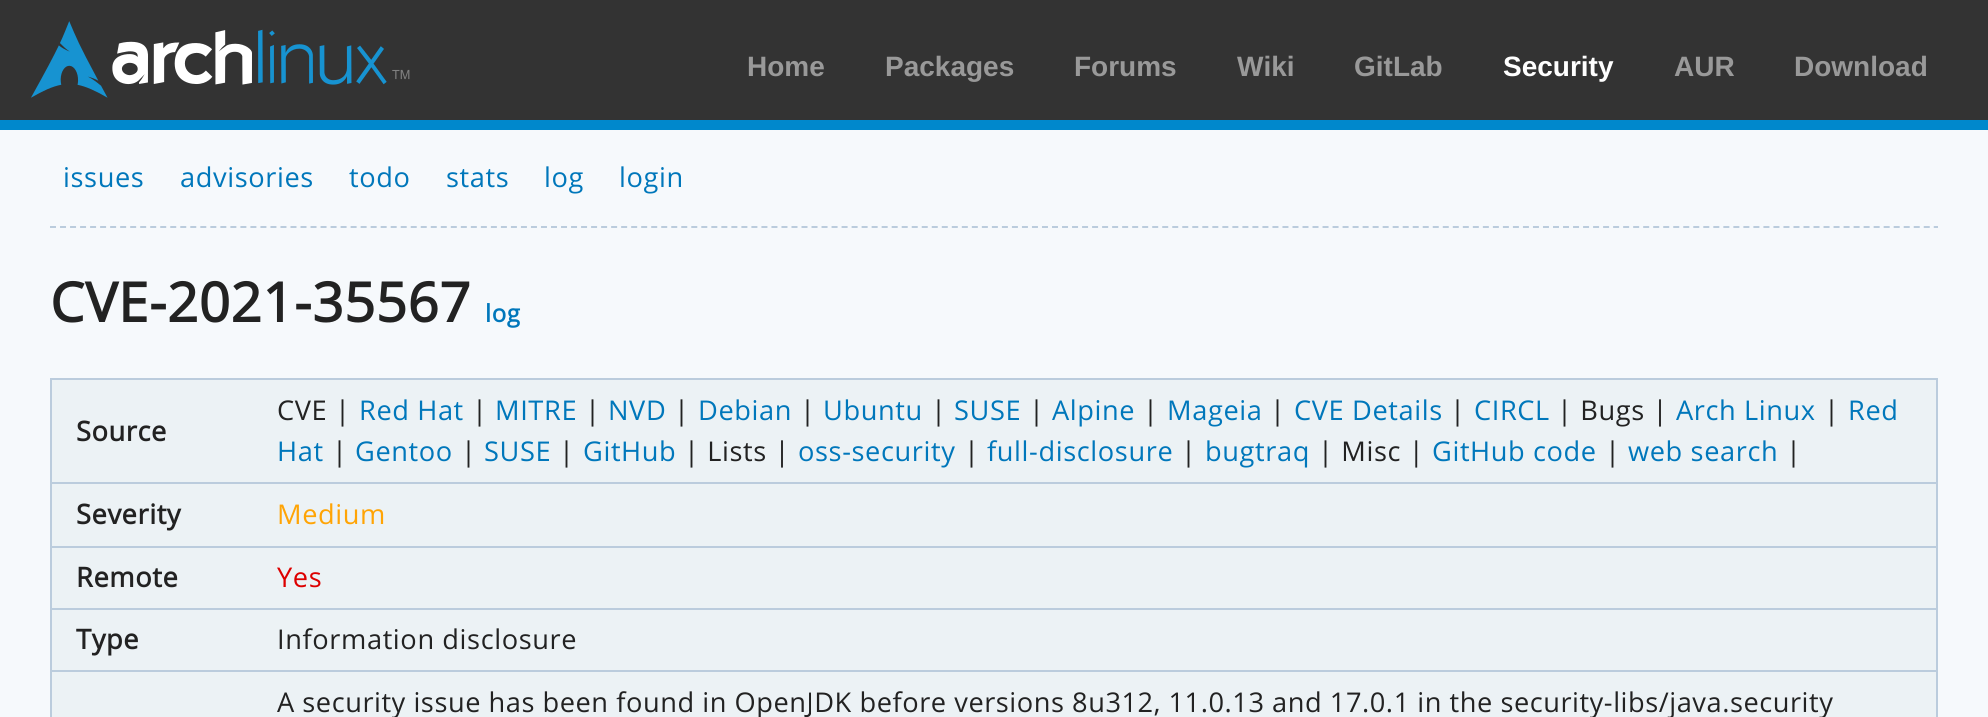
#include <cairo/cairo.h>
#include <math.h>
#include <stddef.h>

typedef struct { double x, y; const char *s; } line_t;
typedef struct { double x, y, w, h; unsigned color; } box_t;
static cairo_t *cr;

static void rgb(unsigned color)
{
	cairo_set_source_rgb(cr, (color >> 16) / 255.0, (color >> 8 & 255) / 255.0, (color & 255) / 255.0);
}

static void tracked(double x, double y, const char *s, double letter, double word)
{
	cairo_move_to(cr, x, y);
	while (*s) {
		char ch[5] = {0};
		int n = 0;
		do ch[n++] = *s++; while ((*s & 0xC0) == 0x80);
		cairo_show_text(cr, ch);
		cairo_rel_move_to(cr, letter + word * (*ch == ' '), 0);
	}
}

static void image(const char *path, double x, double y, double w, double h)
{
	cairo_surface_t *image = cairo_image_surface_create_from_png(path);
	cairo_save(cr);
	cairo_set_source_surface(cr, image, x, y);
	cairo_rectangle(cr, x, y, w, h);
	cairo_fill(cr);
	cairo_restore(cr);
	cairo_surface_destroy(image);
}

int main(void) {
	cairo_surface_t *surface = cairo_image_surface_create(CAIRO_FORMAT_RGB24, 1988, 717);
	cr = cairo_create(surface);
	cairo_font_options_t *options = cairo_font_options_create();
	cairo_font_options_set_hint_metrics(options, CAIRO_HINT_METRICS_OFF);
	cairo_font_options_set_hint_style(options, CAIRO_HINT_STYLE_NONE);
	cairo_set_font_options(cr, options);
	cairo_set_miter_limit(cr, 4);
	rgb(0xf6f9fc);
	cairo_paint(cr);
	rgb(0x333333);
	cairo_rectangle(cr, 0, 0, 1988, 120);
	cairo_fill(cr);
	rgb(0x0088cc);
	cairo_rectangle(cr, 0, 120, 1988, 10);
	cairo_fill(cr);
	image("img/1.png", 31, 21, 379, 77);
	cairo_new_path(cr);
	cairo_move_to(cr, 50, 227);
	cairo_line_to(cr, 1938, 227);
	rgb(0xbbccdd);
	cairo_set_dash(cr, (double[]){6, 4.02}, 2, 0);
	cairo_stroke(cr);
	{
		static const box_t items[] = {
			{52, 380, 1884, 337, 0xecf2f5},
			{50, 378, 1888, 2, 0xbbccdd},
			{1936, 378, 2, 339, 0xbbccdd},
			{50, 378, 2, 339, 0xbbccdd},
			{50, 482, 1888, 2, 0xbbccdd},
			{50, 546, 1888, 2, 0xbbccdd},
			{50, 608, 1888, 2, 0xbbccdd},
			{50, 670, 1888, 2, 0xbbccdd},
		};
		for (size_t i = 0; i < sizeof items / sizeof *items; i++) {
			rgb(items[i].color);
			cairo_rectangle(cr, items[i].x, items[i].y, items[i].w, items[i].h);
			cairo_fill(cr);
		}
	}
	cairo_select_font_face(cr, "Liberation Sans", CAIRO_FONT_SLANT_NORMAL, CAIRO_FONT_WEIGHT_BOLD);
	cairo_set_font_size(cr, 28);
	rgb(0x999999);
	{
		static const line_t items[] = {
			{747, 76, "Home"},
			{885, 76, "Packages"},
			{1074, 76, "Forums"},
			{1237, 76, "Wiki"},
			{1354, 76, "GitLab"},
		};
		for (size_t i = 0; i < sizeof items / sizeof *items; i++) {
			cairo_move_to(cr, items[i].x, items[i].y);
			cairo_show_text(cr, items[i].s);
		}
	}
	rgb(0xffffff);
	cairo_move_to(cr, 1503, 76);
	cairo_show_text(cr, "Security");
	rgb(0x999999);
	cairo_move_to(cr, 1674, 76);
	cairo_show_text(cr, "AUR");
	cairo_move_to(cr, 1794, 76);
	cairo_show_text(cr, "Download");
	cairo_select_font_face(cr, "Open Sans", CAIRO_FONT_SLANT_NORMAL, CAIRO_FONT_WEIGHT_NORMAL);
	cairo_set_font_size(cr, 27.2);
	rgb(0x0077bb);
	{
		static const line_t items[] = {
			{63, 187, "issues"},
			{180, 187, "advisories"},
			{349, 187, "todo"},
			{446, 187, "stats"},
			{544, 187, "log"},
			{619, 187, "login"},
		};
		for (size_t i = 0; i < sizeof items / sizeof *items; i++) {
			tracked(items[i].x, items[i].y, items[i].s, 0.6, 0);
		}
	}
	cairo_select_font_face(cr, "Open Sans", CAIRO_FONT_SLANT_NORMAL, CAIRO_FONT_WEIGHT_BOLD);
	cairo_set_font_size(cr, 54.5);
	rgb(0x222222);
	tracked(50, 322, "CVE-2021-35567", 0.6, 0);
	cairo_set_font_size(cr, 24);
	rgb(0x0077bb);
	tracked(485, 322, "log", 0.6, 0);
	cairo_set_font_size(cr, 27.2);
	rgb(0x222222);
	tracked(76, 441, "Source", 0.6, 0);
	cairo_select_font_face(cr, "Open Sans", CAIRO_FONT_SLANT_NORMAL, CAIRO_FONT_WEIGHT_NORMAL);
	tracked(277, 420, "CVE |", 0.6, 0);
	rgb(0x0077bb);
	tracked(359, 420, "Red Hat", 0.6, 0);
	rgb(0x222222);
	tracked(472, 420, "|", 0.6, 0);
	rgb(0x0077bb);
	tracked(495, 420, "MITRE", 0.6, 0);
	rgb(0x222222);
	tracked(585, 420, "|", 0.6, 0);
	rgb(0x0077bb);
	tracked(608, 420, "NVD", 0.6, 0);
	rgb(0x222222);
	tracked(674, 420, "|", 0.6, 0);
	rgb(0x0077bb);
	tracked(698, 420, "Debian", 0.6, 0);
	rgb(0x222222);
	tracked(800, 420, "|", 0.6, 0);
	rgb(0x0077bb);
	tracked(823, 420, "Ubuntu", 0.6, 0);
	rgb(0x222222);
	tracked(931, 420, "|", 0.6, 0);
	rgb(0x0077bb);
	tracked(954, 420, "SUSE", 0.6, 0);
	rgb(0x222222);
	tracked(1029, 420, "|", 0.6, 0);
	rgb(0x0077bb);
	tracked(1052, 420, "Alpine", 0.6, 0);
	rgb(0x222222);
	tracked(1143, 420, "|", 0.6, 0);
	rgb(0x0077bb);
	tracked(1167, 420, "Mageia", 0.6, 0);
	rgb(0x222222);
	tracked(1270, 420, "|", 0.6, 0);
	rgb(0x0077bb);
	tracked(1294, 420, "CVE Details", 0.6, 0);
	rgb(0x222222);
	tracked(1450, 420, "|", 0.6, 0);
	rgb(0x0077bb);
	tracked(1474, 420, "CIRCL", 0.6, 0);
	rgb(0x222222);
	tracked(1557, 420, "| Bugs |", 0.6, 0);
	rgb(0x0077bb);
	tracked(1676, 420, "Arch Linux", 0.6, 0);
	rgb(0x222222);
	tracked(1824, 420, "|", 0.6, 0);
	rgb(0x0077bb);
	tracked(1848, 420, "Red", 0.6, 0);
	tracked(277, 461, "Hat", 0.6, 0);
	rgb(0x222222);
	tracked(332, 461, "|", 0.6, 0);
	rgb(0x0077bb);
	tracked(355, 461, "Gentoo", 0.6, 0);
	rgb(0x222222);
	tracked(461, 461, "|", 0.6, 0);
	rgb(0x0077bb);
	tracked(484, 461, "SUSE", 0.6, 0);
	rgb(0x222222);
	tracked(559, 461, "|", 0.6, 0);
	rgb(0x0077bb);
	tracked(583, 461, "GitHub", 0.6, 0);
	rgb(0x222222);
	tracked(684, 461, "| Lists |", 0.6, 0);
	rgb(0x0077bb);
	tracked(798, 461, "oss-security", 0.6, 0);
	rgb(0x222222);
	tracked(964, 461, "|", 0.6, 0);
	rgb(0x0077bb);
	tracked(987, 461, "full-disclosure", 0.6, 0);
	rgb(0x222222);
	tracked(1181, 461, "|", 0.6, 0);
	rgb(0x0077bb);
	tracked(1205, 461, "bugtraq", 0.6, 0);
	rgb(0x222222);
	tracked(1318, 461, "| Misc |", 0.6, 0);
	rgb(0x0077bb);
	tracked(1432, 461, "GitHub code", 0.6, 0);
	rgb(0x222222);
	tracked(1605, 461, "|", 0.6, 0);
	rgb(0x0077bb);
	tracked(1628, 461, "web search", 0.6, 0);
	rgb(0x222222);
	tracked(1786, 461, "|", 0.6, 0);
	cairo_select_font_face(cr, "Open Sans", CAIRO_FONT_SLANT_NORMAL, CAIRO_FONT_WEIGHT_BOLD);
	tracked(76, 524, "Severity", 0.6, 0);
	cairo_select_font_face(cr, "Open Sans", CAIRO_FONT_SLANT_NORMAL, CAIRO_FONT_WEIGHT_NORMAL);
	rgb(0xffa405);
	tracked(277, 524, "Medium", 0.6, 0);
	cairo_select_font_face(cr, "Open Sans", CAIRO_FONT_SLANT_NORMAL, CAIRO_FONT_WEIGHT_BOLD);
	rgb(0x222222);
	tracked(76, 587, "Remote", 0.6, 0);
	cairo_select_font_face(cr, "Open Sans", CAIRO_FONT_SLANT_NORMAL, CAIRO_FONT_WEIGHT_NORMAL);
	rgb(0xdd0000);
	tracked(277, 587, "Yes", 0.6, 0);
	cairo_select_font_face(cr, "Open Sans", CAIRO_FONT_SLANT_NORMAL, CAIRO_FONT_WEIGHT_BOLD);
	rgb(0x222222);
	tracked(76, 649, "Type", 0.6, 0);
	cairo_select_font_face(cr, "Open Sans", CAIRO_FONT_SLANT_NORMAL, CAIRO_FONT_WEIGHT_NORMAL);
	tracked(277, 649, "Information disclosure", 0.6, 0);
	tracked(277, 712, "A security issue has been found in OpenJDK before versions 8u312, 11.0.13 and 17.0.1 in the security-libs/java.security", 0.54, 0);
	cairo_surface_write_to_png(surface, "page.png");
	cairo_font_options_destroy(options);
	cairo_destroy(cr);
	cairo_surface_destroy(surface);
	return 0;
}
